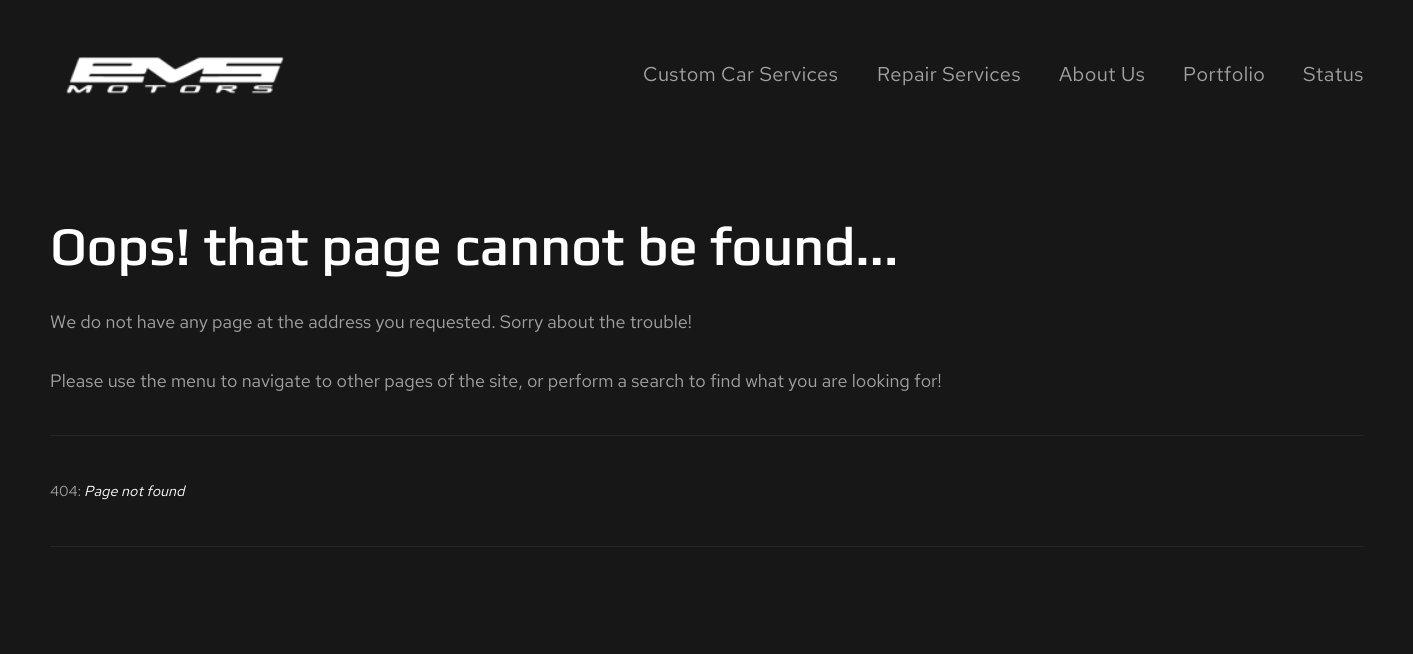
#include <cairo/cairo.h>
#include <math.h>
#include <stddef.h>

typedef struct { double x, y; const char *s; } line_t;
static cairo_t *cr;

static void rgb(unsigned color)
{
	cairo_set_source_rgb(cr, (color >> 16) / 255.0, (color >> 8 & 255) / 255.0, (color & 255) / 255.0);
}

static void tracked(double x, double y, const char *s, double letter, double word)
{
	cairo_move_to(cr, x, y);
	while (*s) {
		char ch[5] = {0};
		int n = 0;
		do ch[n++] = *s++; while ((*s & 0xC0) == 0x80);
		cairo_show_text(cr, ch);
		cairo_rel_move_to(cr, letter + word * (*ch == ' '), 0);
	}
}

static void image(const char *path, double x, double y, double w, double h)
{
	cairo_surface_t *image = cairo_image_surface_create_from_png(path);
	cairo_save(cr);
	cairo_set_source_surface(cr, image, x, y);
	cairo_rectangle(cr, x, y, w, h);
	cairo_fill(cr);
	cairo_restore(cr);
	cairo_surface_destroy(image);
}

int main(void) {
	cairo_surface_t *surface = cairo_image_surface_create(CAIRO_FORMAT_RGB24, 1413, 654);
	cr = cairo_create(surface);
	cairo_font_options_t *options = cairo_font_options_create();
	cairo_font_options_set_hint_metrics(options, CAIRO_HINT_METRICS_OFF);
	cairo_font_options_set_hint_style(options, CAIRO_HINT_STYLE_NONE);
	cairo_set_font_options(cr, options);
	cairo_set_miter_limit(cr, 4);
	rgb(0x171717);
	cairo_paint(cr);
	image("img/1.png", 66, 57, 218, 37);
	rgb(0x252525);
	cairo_rectangle(cr, 50, 435, 1314, 1);
	cairo_fill(cr);
	cairo_rectangle(cr, 50, 546, 1314, 1);
	cairo_fill(cr);
	cairo_select_font_face(cr, "Red Hat Text", CAIRO_FONT_SLANT_NORMAL, CAIRO_FONT_WEIGHT_NORMAL);
	cairo_set_font_size(cr, 20);
	rgb(0xa2a2a2);
	{
		static const line_t items[] = {
			{643, 81, "Custom Car Services"},
			{877, 81, "Repair Services"},
			{1059, 81, "About Us"},
			{1183, 81, "Portfolio"},
			{1303, 81, "Status"},
		};
		for (size_t i = 0; i < sizeof items / sizeof *items; i++) {
			tracked(items[i].x, items[i].y, items[i].s, 0.4, 0);
		}
	}
	cairo_select_font_face(cr, "Play", CAIRO_FONT_SLANT_NORMAL, CAIRO_FONT_WEIGHT_BOLD);
	cairo_set_font_size(cr, 52.5);
	rgb(0xffffff);
	tracked(50, 265, "Oops! that page cannot be found...", 0.95, 0);
	cairo_select_font_face(cr, "Red Hat Text", CAIRO_FONT_SLANT_NORMAL, CAIRO_FONT_WEIGHT_NORMAL);
	cairo_set_font_size(cr, 18);
	rgb(0xa2a2a2);
	cairo_move_to(cr, 50, 328);
	cairo_show_text(cr, "We do not have any page at the address you requested. Sorry about the trouble!");
	cairo_move_to(cr, 50, 387);
	cairo_show_text(cr, "Please use the menu to navigate to other pages of the site, or perform a search to find what you are looking for!");
	cairo_set_font_size(cr, 14.5);
	cairo_move_to(cr, 50, 496);
	cairo_show_text(cr, "404:");
	cairo_select_font_face(cr, "Red Hat Text", CAIRO_FONT_SLANT_ITALIC, CAIRO_FONT_WEIGHT_NORMAL);
	rgb(0xffffff);
	cairo_move_to(cr, 84, 496);
	cairo_show_text(cr, "Page not found");
	cairo_surface_write_to_png(surface, "page.png");
	cairo_font_options_destroy(options);
	cairo_destroy(cr);
	cairo_surface_destroy(surface);
	return 0;
}
